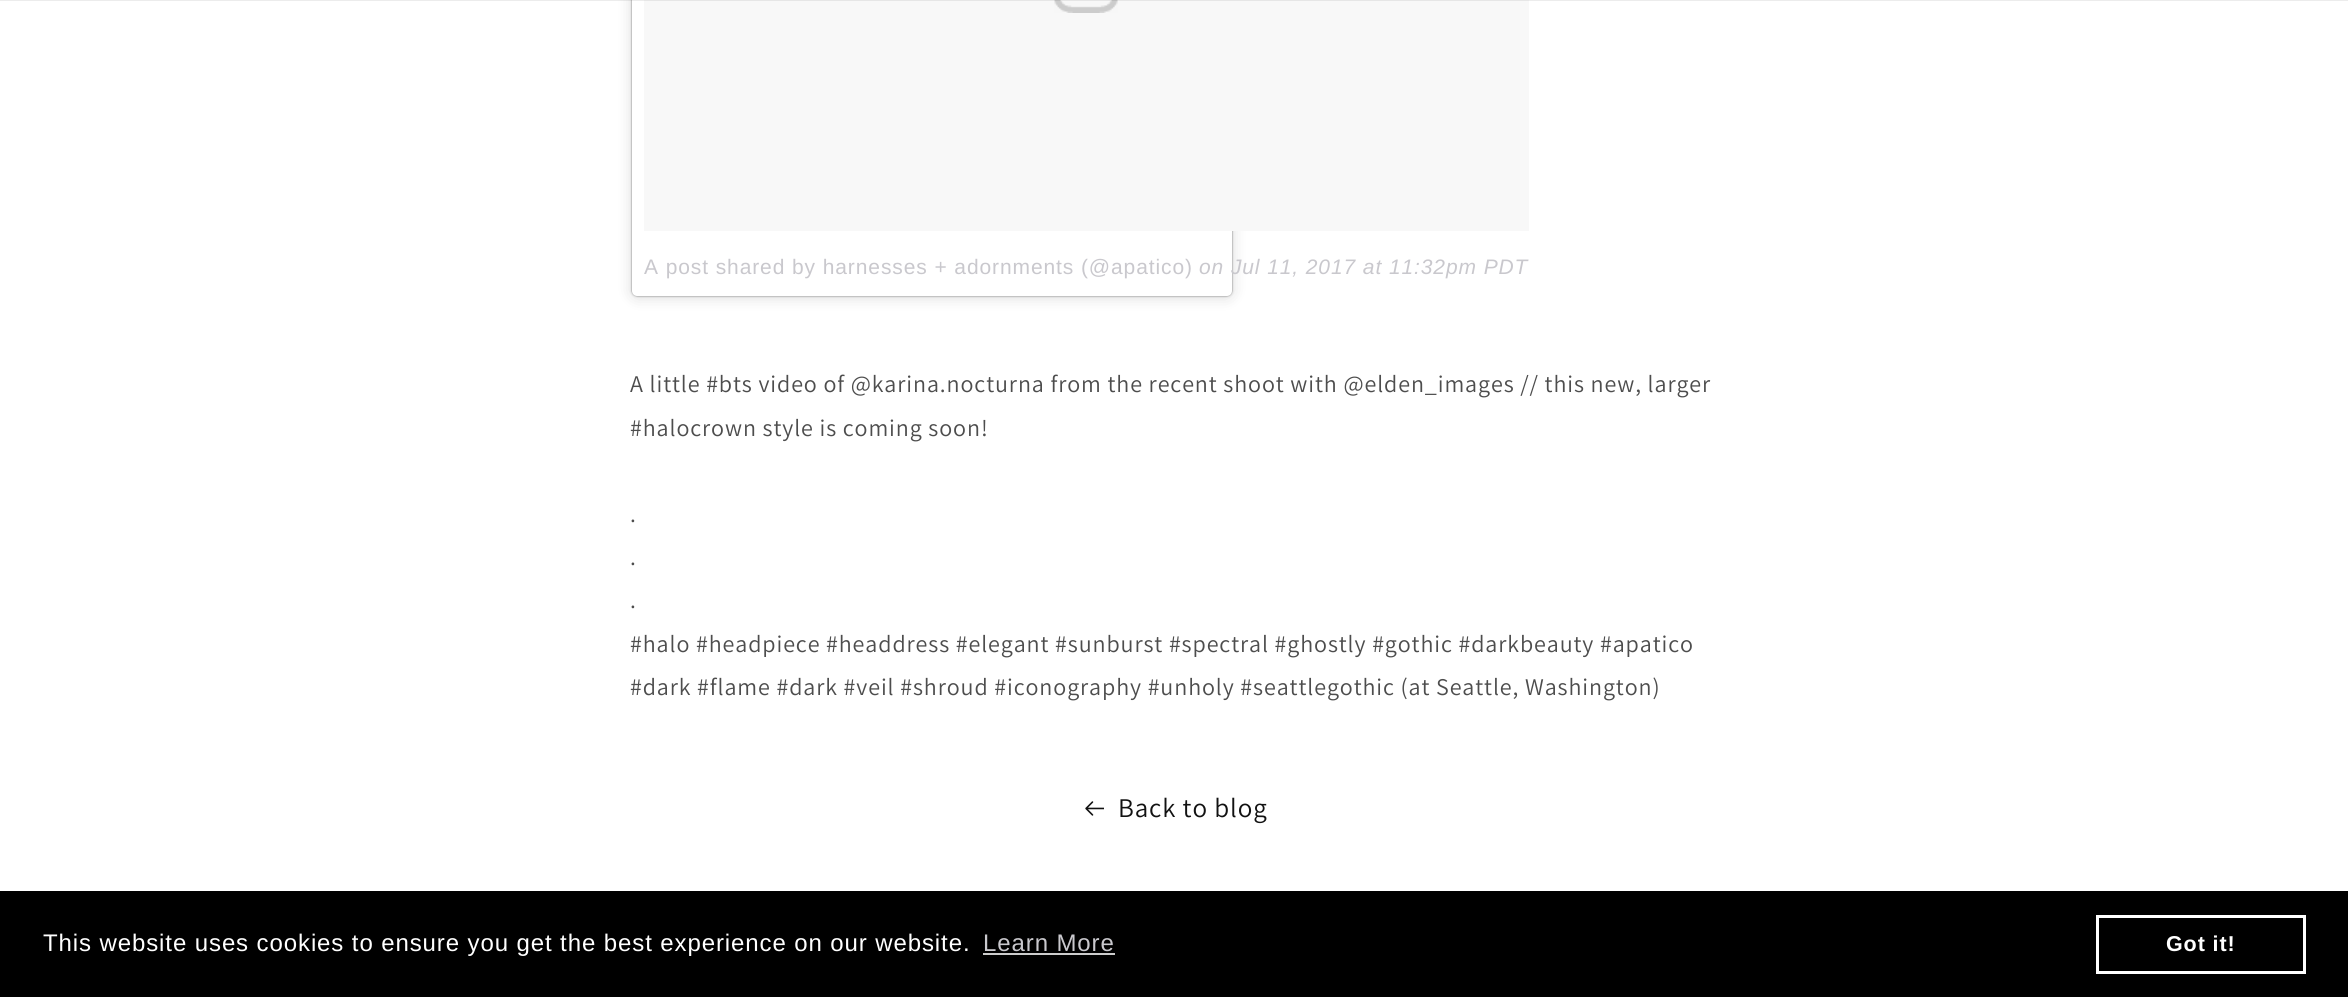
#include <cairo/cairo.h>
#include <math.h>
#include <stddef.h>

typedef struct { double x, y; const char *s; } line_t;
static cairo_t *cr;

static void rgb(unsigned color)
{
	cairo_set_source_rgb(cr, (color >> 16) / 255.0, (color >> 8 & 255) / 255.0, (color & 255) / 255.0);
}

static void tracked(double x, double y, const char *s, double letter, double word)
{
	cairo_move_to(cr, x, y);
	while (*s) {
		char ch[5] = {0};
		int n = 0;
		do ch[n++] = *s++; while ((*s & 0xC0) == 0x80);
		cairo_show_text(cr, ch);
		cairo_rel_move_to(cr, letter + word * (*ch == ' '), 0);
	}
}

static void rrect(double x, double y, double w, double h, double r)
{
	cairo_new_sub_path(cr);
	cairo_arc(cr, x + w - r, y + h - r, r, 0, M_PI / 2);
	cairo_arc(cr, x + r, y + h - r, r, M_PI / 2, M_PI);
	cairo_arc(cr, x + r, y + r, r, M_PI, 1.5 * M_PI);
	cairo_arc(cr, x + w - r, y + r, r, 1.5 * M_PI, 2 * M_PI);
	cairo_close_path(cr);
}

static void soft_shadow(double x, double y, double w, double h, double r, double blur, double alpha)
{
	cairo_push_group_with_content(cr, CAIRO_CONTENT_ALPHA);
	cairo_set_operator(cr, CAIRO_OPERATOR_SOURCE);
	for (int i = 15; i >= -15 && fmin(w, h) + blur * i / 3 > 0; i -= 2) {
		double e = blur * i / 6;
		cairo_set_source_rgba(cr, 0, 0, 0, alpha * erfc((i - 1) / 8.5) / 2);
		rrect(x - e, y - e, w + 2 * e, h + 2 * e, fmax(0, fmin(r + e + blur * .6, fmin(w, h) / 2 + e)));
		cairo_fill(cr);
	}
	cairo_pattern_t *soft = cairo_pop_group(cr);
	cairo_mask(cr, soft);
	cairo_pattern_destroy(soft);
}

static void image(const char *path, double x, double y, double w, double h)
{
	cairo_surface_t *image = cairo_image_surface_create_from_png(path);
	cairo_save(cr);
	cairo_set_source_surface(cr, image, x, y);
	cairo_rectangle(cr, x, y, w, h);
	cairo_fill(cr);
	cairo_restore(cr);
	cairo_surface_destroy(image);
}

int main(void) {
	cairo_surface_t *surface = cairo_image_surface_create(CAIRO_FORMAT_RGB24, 2348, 997);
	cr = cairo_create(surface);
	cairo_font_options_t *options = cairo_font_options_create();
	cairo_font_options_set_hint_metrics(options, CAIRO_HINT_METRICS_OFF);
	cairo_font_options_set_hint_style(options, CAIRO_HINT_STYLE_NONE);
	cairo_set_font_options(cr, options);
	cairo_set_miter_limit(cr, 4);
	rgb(0xffffff);
	cairo_paint(cr);
	rgb(0x000000);
	soft_shadow(632, -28, 600, 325, 5, 7.5, 0.15);
	soft_shadow(632, -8, 600, 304, 5, 1, 0.5);
	rgb(0xffffff);
	rrect(632, -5, 600, 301, 5);
	cairo_fill(cr);
	rgb(0xf8f8f8);
	cairo_rectangle(cr, 644, 0, 885, 231);
	cairo_fill(cr);
	image("img/1.png", 1054, 0, 64, 13);
	cairo_set_source_rgba(cr, 0.071, 0.071, 0.071, 0.08);
	cairo_rectangle(cr, 0, 0, 2348, 1);
	cairo_fill(cr);
	image("img/2.png", 1085, 801, 19, 15);
	rgb(0x000000);
	cairo_rectangle(cr, 0, 891, 2348, 106);
	cairo_fill(cr);
	rgb(0xcccccc);
	cairo_rectangle(cr, 983, 953, 132, 2);
	cairo_fill(cr);
	cairo_rectangle(cr, 2097.5, 916.5, 207, 56);
	rgb(0xffffff);
	cairo_set_line_width(cr, 3);
	cairo_stroke(cr);
	cairo_select_font_face(cr, "Liberation Sans", CAIRO_FONT_SLANT_NORMAL, CAIRO_FONT_WEIGHT_NORMAL);
	cairo_set_font_size(cr, 21);
	rgb(0xc9c8cd);
	tracked(644, 274, "A post shared by harnesses + adornments (@apatico)", 0.9, 0);
	cairo_select_font_face(cr, "Liberation Sans", CAIRO_FONT_SLANT_ITALIC, CAIRO_FONT_WEIGHT_NORMAL);
	tracked(1199, 274, "on Jul 11, 2017 at 11:32pm PDT", 0.9, 0);
	cairo_select_font_face(cr, "Assistant", CAIRO_FONT_SLANT_NORMAL, CAIRO_FONT_WEIGHT_NORMAL);
	cairo_set_font_size(cr, 24);
	rgb(0x4d4d4d);
	{
		static const line_t items[] = {
			{630, 392, "A little #bts video of @karina.nocturna from the recent shoot with @elden_images // this new, larger"},
			{630, 436, "#halocrown style is coming soon!"},
			{630, 522, "."},
			{630, 565, "."},
			{630, 608, "."},
			{630, 652, "#halo #headpiece #headdress #elegant #sunburst #spectral #ghostly #gothic #darkbeauty #apatico"},
			{630, 695, "#dark #flame #dark #veil #shroud #iconography #unholy #seattlegothic (at Seattle, Washington)"},
		};
		for (size_t i = 0; i < sizeof items / sizeof *items; i++) {
			tracked(items[i].x, items[i].y, items[i].s, 0.9, 0);
		}
	}
	cairo_set_font_size(cr, 27);
	rgb(0x121212);
	tracked(1118, 817, "Back to blog", 0.9, 0);
	cairo_select_font_face(cr, "Liberation Sans", CAIRO_FONT_SLANT_NORMAL, CAIRO_FONT_WEIGHT_NORMAL);
	cairo_set_font_size(cr, 24);
	rgb(0xffffff);
	tracked(43, 951, "This website uses cookies to ensure you get the best experience on our website.", 0.9, 0);
	rgb(0xc9c8cd);
	tracked(983, 951, "Learn More", 0.9, 0);
	cairo_select_font_face(cr, "Liberation Sans", CAIRO_FONT_SLANT_NORMAL, CAIRO_FONT_WEIGHT_BOLD);
	cairo_set_font_size(cr, 21.5);
	rgb(0xffffff);
	tracked(2166, 951, "Got it!", 0.9, 0);
	cairo_surface_write_to_png(surface, "page.png");
	cairo_font_options_destroy(options);
	cairo_destroy(cr);
	cairo_surface_destroy(surface);
	return 0;
}
